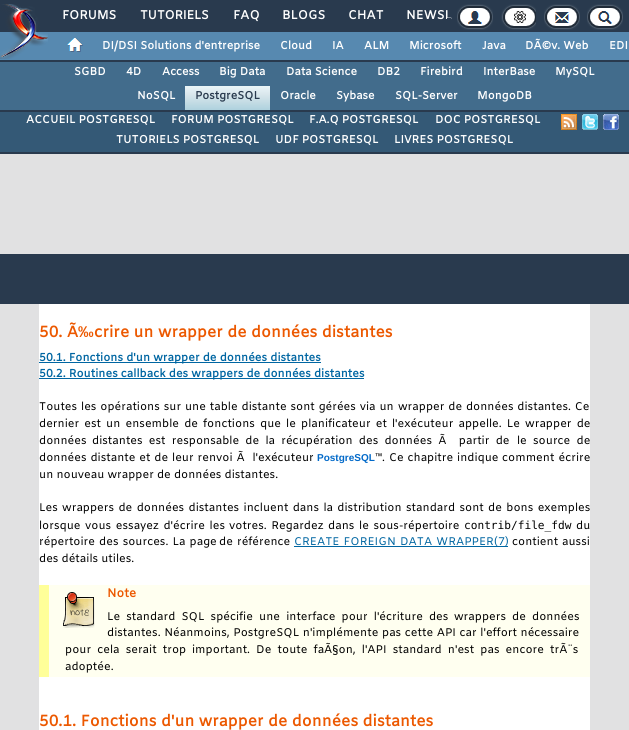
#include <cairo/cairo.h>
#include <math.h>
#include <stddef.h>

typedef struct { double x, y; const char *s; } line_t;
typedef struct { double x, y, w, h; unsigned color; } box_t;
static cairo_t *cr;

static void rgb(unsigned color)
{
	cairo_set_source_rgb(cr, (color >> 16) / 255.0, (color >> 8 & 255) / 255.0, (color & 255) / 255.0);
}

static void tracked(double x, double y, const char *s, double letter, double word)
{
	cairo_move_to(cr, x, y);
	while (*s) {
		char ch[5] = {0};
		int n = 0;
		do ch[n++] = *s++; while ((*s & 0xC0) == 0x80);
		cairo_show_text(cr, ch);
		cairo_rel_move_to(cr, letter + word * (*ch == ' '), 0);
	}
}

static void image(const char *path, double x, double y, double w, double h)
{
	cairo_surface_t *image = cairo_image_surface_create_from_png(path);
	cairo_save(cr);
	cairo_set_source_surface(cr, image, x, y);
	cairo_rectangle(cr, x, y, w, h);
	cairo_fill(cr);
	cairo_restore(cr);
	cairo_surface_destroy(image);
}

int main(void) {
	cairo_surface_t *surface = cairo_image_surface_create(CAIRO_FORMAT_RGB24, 629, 730);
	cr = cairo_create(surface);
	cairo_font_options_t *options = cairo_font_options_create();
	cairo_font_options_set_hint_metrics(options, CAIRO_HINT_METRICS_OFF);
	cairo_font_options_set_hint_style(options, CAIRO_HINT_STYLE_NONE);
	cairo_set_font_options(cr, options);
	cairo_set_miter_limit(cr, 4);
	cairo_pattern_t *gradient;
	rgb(0x293a4e);
	cairo_paint(cr);
	rgb(0x5789b0);
	cairo_rectangle(cr, 0, 32, 629, 28);
	cairo_fill(cr);
	image("img/1.png", 0, 4, 48, 55);
	image("img/2.png", 457, 4, 36, 26);
	image("img/3.png", 501, 4, 35, 26);
	image("img/4.png", 544, 4, 36, 26);
	image("img/5.png", 587, 4, 36, 26);
	image("img/6.png", 67, 38, 16, 14);
	rgb(0x426c8c);
	cairo_rectangle(cr, 0, 62, 629, 48);
	cairo_fill(cr);
	gradient = cairo_pattern_create_linear(228, 86, 228, 110);
	cairo_pattern_add_color_stop_rgba(gradient, 0, 0.918, 0.961, 0.973, 1);
	cairo_pattern_add_color_stop_rgba(gradient, 0.37, 0.847, 0.902, 0.925, 1);
	cairo_pattern_add_color_stop_rgba(gradient, 1, 0.682, 0.82, 0.867, 1);
	cairo_set_source(cr, gradient);
	cairo_pattern_destroy(gradient);
	cairo_rectangle(cr, 185, 86, 85, 24);
	cairo_fill(cr);
	rgb(0x345976);
	cairo_rectangle(cr, 0, 112, 629, 40);
	cairo_fill(cr);
	image("img/7.png", 561, 114, 16, 16);
	image("img/8.png", 582, 114, 16, 16);
	image("img/9.png", 603, 114, 16, 16);
	{
		static const box_t items[] = {
			{0, 154, 629, 100, 0xe1e1e2},
			{0, 304, 629, 426, 0xe1e1e2},
			{39, 304, 551, 426, 0xffffff},
			{39, 362, 282, 1, 0x0066a2},
			{39, 378, 325, 1, 0x0066a2},
			{294, 546, 214, 1, 0x0066a2},
			{49, 585, 541, 92, 0xfffff0},
			{39, 585, 10, 92, 0xffff99},
		};
		for (size_t i = 0; i < sizeof items / sizeof *items; i++) {
			rgb(items[i].color);
			cairo_rectangle(cr, items[i].x, items[i].y, items[i].w, items[i].h);
			cairo_fill(cr);
		}
	}
	image("img/10.png", 63, 592, 32, 36);
	cairo_select_font_face(cr, "Amiko", CAIRO_FONT_SLANT_NORMAL, CAIRO_FONT_WEIGHT_BOLD);
	cairo_set_font_size(cr, 12.25);
	rgb(0xffffff);
	tracked(62, 19, "FORUMS", -0.25, 0);
	tracked(140, 19, "TUTORIELS", -0.25, 0);
	{
		static const line_t items[] = {
			{233, 19, "FAQ"},
			{282, 19, "BLOGS"},
			{348, 19, "CHAT"},
			{406, 19, "NEWSL"},
		};
		for (size_t i = 0; i < sizeof items / sizeof *items; i++) {
			cairo_move_to(cr, items[i].x, items[i].y);
			cairo_show_text(cr, items[i].s);
		}
	}
	rgb(0x293a4e);
	cairo_rectangle(cr, 447, 18, 4, 1);
	cairo_fill(cr);
	cairo_set_font_size(cr, 11);
	rgb(0xffffff);
	{
		static const line_t items[] = {
			{102, 49, "DI/DSI Solutions d'entreprise"},
			{280, 49, "Cloud"},
			{332, 49, "IA"},
			{364, 49, "ALM"},
			{409, 49, "Microsoft"},
			{482, 49, "Java"},
			{525, 49, "DÃ©v. Web"},
			{609, 49, "EDI"},
			{74, 75, "SGBD"},
			{126, 75, "4D"},
			{162, 75, "Access"},
			{219, 75, "Big Data"},
			{286, 75, "Data Science"},
			{377, 75, "DB2"},
			{420, 75, "Firebird"},
			{483, 75, "InterBase"},
			{555, 75, "MySQL"},
			{137, 99, "NoSQL"},
		};
		for (size_t i = 0; i < sizeof items / sizeof *items; i++) {
			cairo_move_to(cr, items[i].x, items[i].y);
			cairo_show_text(cr, items[i].s);
		}
	}
	rgb(0x293a4e);
	cairo_move_to(cr, 195, 99);
	cairo_show_text(cr, "PostgreSQL");
	rgb(0xffffff);
	{
		static const line_t items[] = {
			{280, 99, "Oracle"},
			{336, 99, "Sybase"},
			{395, 99, "SQL-Server"},
			{477, 99, "MongoDB"},
			{26, 123, "ACCUEIL POSTGRESQL"},
			{171, 123, "FORUM POSTGRESQL"},
			{309, 123, "F.A.Q POSTGRESQL"},
			{435, 123, "DOC POSTGRESQL"},
			{116, 143, "TUTORIELS POSTGRESQL"},
			{275, 143, "UDF POSTGRESQL"},
			{394, 143, "LIVRES POSTGRESQL"},
		};
		for (size_t i = 0; i < sizeof items / sizeof *items; i++) {
			cairo_move_to(cr, items[i].x, items[i].y);
			cairo_show_text(cr, items[i].s);
		}
	}
	cairo_set_font_size(cr, 15.6);
	rgb(0xec5800);
	cairo_move_to(cr, 39, 337);
	cairo_show_text(cr, "50. Ã");
	cairo_select_font_face(cr, "Liberation Sans", CAIRO_FONT_SLANT_NORMAL, CAIRO_FONT_WEIGHT_BOLD);
	cairo_move_to(cr, 78, 337);
	cairo_show_text(cr, "‰");
	cairo_select_font_face(cr, "Amiko", CAIRO_FONT_SLANT_NORMAL, CAIRO_FONT_WEIGHT_BOLD);
	cairo_move_to(cr, 94, 337);
	cairo_show_text(cr, "crire un wrapper de données distantes");
	cairo_set_font_size(cr, 11.15);
	rgb(0x0066a2);
	cairo_move_to(cr, 39, 361);
	cairo_show_text(cr, "50.1. Fonctions d'un wrapper de données distantes");
	cairo_move_to(cr, 39, 377);
	cairo_show_text(cr, "50.2. Routines callback des wrappers de données distantes");
	cairo_select_font_face(cr, "Amiko", CAIRO_FONT_SLANT_NORMAL, CAIRO_FONT_WEIGHT_NORMAL);
	rgb(0x000000);
	tracked(39, 410, "Toutes les opérations sur une table distante sont gérées via un", 0, 0.75);
	tracked(398, 410, "wrapper de données distantes. Ce", 0, 0.75);
	tracked(39, 427, "dernier est un ensemble de fonctions", 0, 2);
	tracked(260, 427, "que le planificateur et l'exécuteur appelle. Le wrapper de", 0, 2);
	cairo_move_to(cr, 39, 444);
	cairo_show_text(cr, "données");
	tracked(92, 444, "distantes est responsable de la récupération des données Ã  partir de", 0, 3.1);
	tracked(517, 444, "le source de", 0, 3.1);
	tracked(39, 461, "données distante et de leur renvoi Ã  l'exécuteur", 0, 0.75);
	cairo_select_font_face(cr, "Liberation Sans", CAIRO_FONT_SLANT_NORMAL, CAIRO_FONT_WEIGHT_BOLD);
	cairo_set_font_size(cr, 10);
	rgb(0x0169c9);
	cairo_move_to(cr, 317, 461);
	cairo_show_text(cr, "PostgreSQL");
	cairo_select_font_face(cr, "Amiko", CAIRO_FONT_SLANT_NORMAL, CAIRO_FONT_WEIGHT_NORMAL);
	cairo_set_font_size(cr, 11.15);
	rgb(0x000000);
	tracked(375, 461, "™. Ce chapitre indique", 0, 0.75);
	tracked(502, 461, "comment écrire", 0, 1);
	cairo_move_to(cr, 39, 478);
	cairo_show_text(cr, "un nouveau wrapper de données distantes.");
	tracked(39, 511, "Les wrappers de données distantes incluent dans la distribution", 0, 1.25);
	tracked(406, 511, "standard sont de bons exemples", 0, 1.25);
	tracked(39, 529, "lorsque vous essayez d'écrire les", 0, 1.5);
	tracked(229, 529, "votres. Regardez dans le sous-répertoire", 0, 1.5);
	cairo_select_font_face(cr, "DejaVu Sans Mono", CAIRO_FONT_SLANT_NORMAL, CAIRO_FONT_WEIGHT_NORMAL);
	cairo_move_to(cr, 464, 529);
	cairo_show_text(cr, "contrib/file_fdw");
	cairo_select_font_face(cr, "Amiko", CAIRO_FONT_SLANT_NORMAL, CAIRO_FONT_WEIGHT_NORMAL);
	cairo_move_to(cr, 576, 529);
	cairo_show_text(cr, "du");
	tracked(39, 545, "répertoire des sources. La page", 0, 1);
	tracked(219, 545, "de référence", 0, 1);
	rgb(0x0066a2);
	tracked(294, 545, "CREATE FOREIGN DATA WRAPPER", 0, 1);
	cairo_move_to(cr, 494, 545);
	cairo_show_text(cr, "(7)");
	rgb(0x000000);
	{
		static const line_t items[] = {
			{512, 545, "contient"},
			{562, 545, "aussi"},
			{39, 562, "des détails utiles."},
		};
		for (size_t i = 0; i < sizeof items / sizeof *items; i++) {
			cairo_move_to(cr, items[i].x, items[i].y);
			cairo_show_text(cr, items[i].s);
		}
	}
	cairo_select_font_face(cr, "Amiko", CAIRO_FONT_SLANT_NORMAL, CAIRO_FONT_WEIGHT_BOLD);
	cairo_set_font_size(cr, 12);
	rgb(0xec5800);
	cairo_move_to(cr, 107, 597);
	cairo_show_text(cr, "Note");
	cairo_select_font_face(cr, "Amiko", CAIRO_FONT_SLANT_NORMAL, CAIRO_FONT_WEIGHT_NORMAL);
	cairo_set_font_size(cr, 11.15);
	rgb(0x000000);
	tracked(107, 620, "Le standard SQL spécifie une interface pour l'écriture des", 0, 3);
	tracked(454, 620, "wrappers de données", 0, 3);
	tracked(107, 636, "distantes. Néanmoins, PostgreSQL n'implémente", 0, 0.5);
	tracked(382, 636, "pas cette API car l'effort nécessaire", 0, 0.5);
	tracked(65, 653, "pour cela serait trop", 0, 3);
	tracked(192, 653, "important. De toute faÃ§on, l'API standard n'est pas encore trÃ¨s", 0, 3);
	cairo_move_to(cr, 65, 670);
	cairo_show_text(cr, "adoptée.");
	cairo_select_font_face(cr, "Amiko", CAIRO_FONT_SLANT_NORMAL, CAIRO_FONT_WEIGHT_BOLD);
	cairo_set_font_size(cr, 15.6);
	rgb(0xec5800);
	cairo_move_to(cr, 39, 726);
	cairo_show_text(cr, "50.1. Fonctions d'un wrapper de données distantes");
	cairo_surface_write_to_png(surface, "page.png");
	cairo_font_options_destroy(options);
	cairo_destroy(cr);
	cairo_surface_destroy(surface);
	return 0;
}
